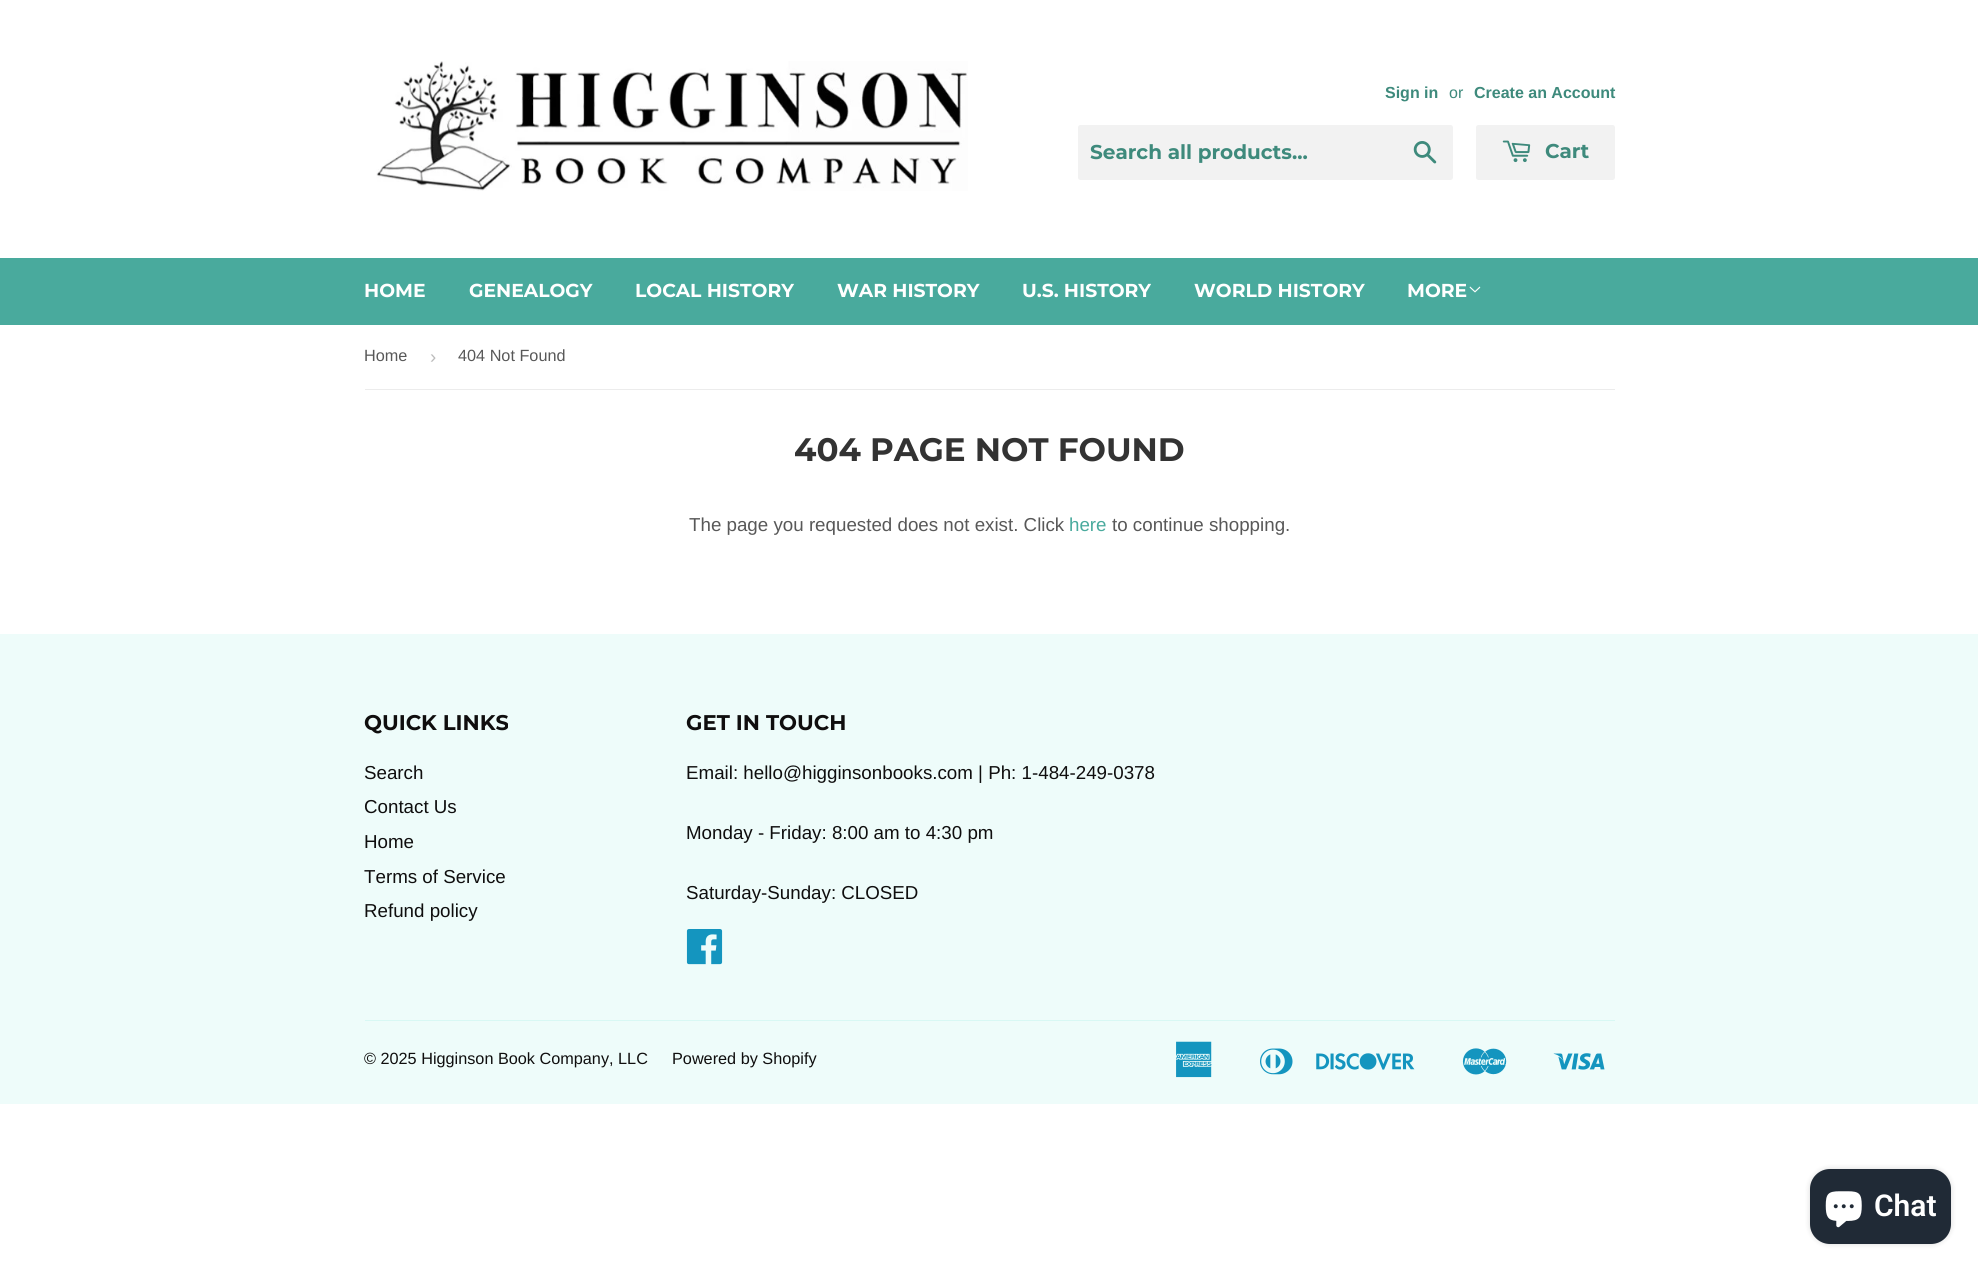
#include <cairo/cairo.h>
#include <math.h>
#include <stddef.h>

typedef struct { double x, y; const char *s; } line_t;
static cairo_t *cr;

static void rgb(unsigned color)
{
	cairo_set_source_rgb(cr, (color >> 16) / 255.0, (color >> 8 & 255) / 255.0, (color & 255) / 255.0);
}

static void rrect(double x, double y, double w, double h, double r)
{
	cairo_new_sub_path(cr);
	cairo_arc(cr, x + w - r, y + h - r, r, 0, M_PI / 2);
	cairo_arc(cr, x + r, y + h - r, r, M_PI / 2, M_PI);
	cairo_arc(cr, x + r, y + r, r, M_PI, 1.5 * M_PI);
	cairo_arc(cr, x + w - r, y + r, r, 1.5 * M_PI, 2 * M_PI);
	cairo_close_path(cr);
}

static void soft_shadow(double x, double y, double w, double h, double r, double blur, double alpha)
{
	cairo_push_group_with_content(cr, CAIRO_CONTENT_ALPHA);
	cairo_set_operator(cr, CAIRO_OPERATOR_SOURCE);
	for (int i = 15; i >= -15 && fmin(w, h) + blur * i / 3 > 0; i -= 2) {
		double e = blur * i / 6;
		cairo_set_source_rgba(cr, 0, 0, 0, alpha * erfc((i - 1) / 8.5) / 2);
		rrect(x - e, y - e, w + 2 * e, h + 2 * e, fmax(0, fmin(r + e + blur * .6, fmin(w, h) / 2 + e)));
		cairo_fill(cr);
	}
	cairo_pattern_t *soft = cairo_pop_group(cr);
	cairo_mask(cr, soft);
	cairo_pattern_destroy(soft);
}

static void image(const char *path, double x, double y, double w, double h)
{
	cairo_surface_t *image = cairo_image_surface_create_from_png(path);
	cairo_save(cr);
	cairo_set_source_surface(cr, image, x, y);
	cairo_rectangle(cr, x, y, w, h);
	cairo_fill(cr);
	cairo_restore(cr);
	cairo_surface_destroy(image);
}

int main(void) {
	cairo_surface_t *surface = cairo_image_surface_create(CAIRO_FORMAT_RGB24, 1978, 1269);
	cr = cairo_create(surface);
	cairo_font_options_t *options = cairo_font_options_create();
	cairo_font_options_set_hint_metrics(options, CAIRO_HINT_METRICS_OFF);
	cairo_font_options_set_hint_style(options, CAIRO_HINT_STYLE_NONE);
	cairo_set_font_options(cr, options);
	cairo_set_miter_limit(cr, 4);
	rgb(0xffffff);
	cairo_paint(cr);
	image("img/1.png", 376, 61, 592, 130);
	rgb(0xf2f2f2);
	rrect(1078, 125, 375, 55, 2.5);
	cairo_fill(cr);
	image("img/2.png", 1413, 141, 24, 23);
	rrect(1476, 125, 139, 55, 2.5);
	cairo_fill(cr);
	image("img/3.png", 1502, 140, 29, 23);
	rgb(0x49aa9d);
	cairo_rectangle(cr, 0, 258, 1978, 67);
	cairo_fill(cr);
	image("img/4.png", 1469, 286, 12, 7);
	rgb(0xececec);
	cairo_rectangle(cr, 365, 389, 1250, 1);
	cairo_fill(cr);
	rgb(0xeefcfa);
	cairo_rectangle(cr, 0, 634, 1978, 470);
	cairo_fill(cr);
	image("img/5.png", 686, 929, 37, 36);
	rgb(0xd8f8f4);
	cairo_rectangle(cr, 365, 1020, 1250, 1);
	cairo_fill(cr);
	image("img/6.png", 1176, 1041, 36, 37);
	image("img/7.png", 1260, 1048, 33, 27);
	image("img/8.png", 1316, 1053, 99, 17);
	image("img/9.png", 1462, 1048, 45, 27);
	image("img/10.png", 1553, 1053, 52, 17);
	rgb(0x000000);
	soft_shadow(1810, 1169, 141, 75, 20, 3, 0.15);
	rgb(0x202a36);
	rrect(1810, 1169, 141, 75, 20);
	cairo_fill(cr);
	image("img/11.png", 1825, 1191, 37, 37);
	cairo_select_font_face(cr, "Liberation Sans", CAIRO_FONT_SLANT_NORMAL, CAIRO_FONT_WEIGHT_BOLD);
	cairo_set_font_size(cr, 16);
	rgb(0x3e8a7c);
	cairo_move_to(cr, 1385, 98);
	cairo_show_text(cr, "Sign in");
	cairo_select_font_face(cr, "Liberation Sans", CAIRO_FONT_SLANT_NORMAL, CAIRO_FONT_WEIGHT_NORMAL);
	cairo_move_to(cr, 1449, 98);
	cairo_show_text(cr, "or");
	cairo_select_font_face(cr, "Liberation Sans", CAIRO_FONT_SLANT_NORMAL, CAIRO_FONT_WEIGHT_BOLD);
	cairo_move_to(cr, 1474, 98);
	cairo_show_text(cr, "Create an Account");
	cairo_select_font_face(cr, "Montserrat Thin", CAIRO_FONT_SLANT_NORMAL, CAIRO_FONT_WEIGHT_NORMAL);
	cairo_set_font_size(cr, 20);
	cairo_move_to(cr, 1090, 159);
	cairo_show_text(cr, "Search all products...");
	cairo_move_to(cr, 1545, 158);
	cairo_show_text(cr, "Cart");
	cairo_set_font_size(cr, 18.75);
	rgb(0xffffff);
	{
		static const line_t items[] = {
			{364, 297, "HOME"},
			{469, 297, "GENEALOGY"},
			{635, 297, "LOCAL HISTORY"},
			{837, 297, "WAR HISTORY"},
			{1022, 297, "U.S. HISTORY"},
			{1194, 297, "WORLD HISTORY"},
			{1407, 297, "MORE"},
		};
		for (size_t i = 0; i < sizeof items / sizeof *items; i++) {
			cairo_move_to(cr, items[i].x, items[i].y);
			cairo_show_text(cr, items[i].s);
		}
	}
	cairo_select_font_face(cr, "Liberation Sans", CAIRO_FONT_SLANT_NORMAL, CAIRO_FONT_WEIGHT_NORMAL);
	cairo_set_font_size(cr, 16.25);
	rgb(0x585858);
	cairo_move_to(cr, 364, 361);
	cairo_show_text(cr, "Home");
	cairo_set_font_size(cr, 18.75);
	rgb(0xbbbbbb);
	cairo_move_to(cr, 430, 363);
	cairo_show_text(cr, "›");
	cairo_set_font_size(cr, 16.25);
	rgb(0x585858);
	cairo_move_to(cr, 458, 361);
	cairo_show_text(cr, "404 Not Found");
	cairo_select_font_face(cr, "Montserrat Thin", CAIRO_FONT_SLANT_NORMAL, CAIRO_FONT_WEIGHT_NORMAL);
	cairo_set_font_size(cr, 32.5);
	rgb(0x333333);
	cairo_move_to(cr, 794, 461);
	cairo_show_text(cr, "404 PAGE NOT FOUND");
	cairo_select_font_face(cr, "Liberation Sans", CAIRO_FONT_SLANT_NORMAL, CAIRO_FONT_WEIGHT_NORMAL);
	cairo_set_font_size(cr, 18.75);
	rgb(0x585858);
	cairo_move_to(cr, 689, 531);
	cairo_show_text(cr, "The page you requested does not exist. Click");
	rgb(0x49aa9d);
	cairo_move_to(cr, 1069, 531);
	cairo_show_text(cr, "here");
	rgb(0x585858);
	cairo_move_to(cr, 1112, 531);
	cairo_show_text(cr, "to continue shopping.");
	cairo_select_font_face(cr, "Montserrat Thin", CAIRO_FONT_SLANT_NORMAL, CAIRO_FONT_WEIGHT_NORMAL);
	cairo_set_font_size(cr, 21.25);
	rgb(0x0f0e0e);
	cairo_move_to(cr, 364, 730);
	cairo_show_text(cr, "QUICK LINKS");
	cairo_select_font_face(cr, "Liberation Sans", CAIRO_FONT_SLANT_NORMAL, CAIRO_FONT_WEIGHT_NORMAL);
	cairo_set_font_size(cr, 18.75);
	{
		static const line_t items[] = {
			{364, 779, "Search"},
			{364, 813, "Contact Us"},
			{364, 848, "Home"},
			{364, 883, "Terms of Service"},
			{364, 917, "Refund policy"},
		};
		for (size_t i = 0; i < sizeof items / sizeof *items; i++) {
			cairo_move_to(cr, items[i].x, items[i].y);
			cairo_show_text(cr, items[i].s);
		}
	}
	cairo_select_font_face(cr, "Montserrat Thin", CAIRO_FONT_SLANT_NORMAL, CAIRO_FONT_WEIGHT_NORMAL);
	cairo_set_font_size(cr, 21.25);
	cairo_move_to(cr, 686, 730);
	cairo_show_text(cr, "GET IN TOUCH");
	cairo_select_font_face(cr, "Liberation Sans", CAIRO_FONT_SLANT_NORMAL, CAIRO_FONT_WEIGHT_NORMAL);
	cairo_set_font_size(cr, 18.75);
	{
		static const line_t items[] = {
			{686, 779, "Email: hello@higginsonbooks.com | Ph: 1-484-249-0378"},
			{686, 839, "Monday - Friday: 8:00 am to 4:30 pm"},
			{686, 899, "Saturday-Sunday: CLOSED"},
		};
		for (size_t i = 0; i < sizeof items / sizeof *items; i++) {
			cairo_move_to(cr, items[i].x, items[i].y);
			cairo_show_text(cr, items[i].s);
		}
	}
	cairo_set_font_size(cr, 16.25);
	cairo_move_to(cr, 364, 1064);
	cairo_show_text(cr, "© 2025 Higginson Book Company, LLC");
	cairo_move_to(cr, 672, 1064);
	cairo_show_text(cr, "Powered by Shopify");
	cairo_select_font_face(cr, "Roboto SemiBold", CAIRO_FONT_SLANT_NORMAL, CAIRO_FONT_WEIGHT_NORMAL);
	cairo_set_font_size(cr, 30);
	rgb(0xffffff);
	cairo_move_to(cr, 1874, 1216);
	cairo_show_text(cr, "Chat");
	cairo_surface_write_to_png(surface, "page.png");
	cairo_font_options_destroy(options);
	cairo_destroy(cr);
	cairo_surface_destroy(surface);
	return 0;
}
